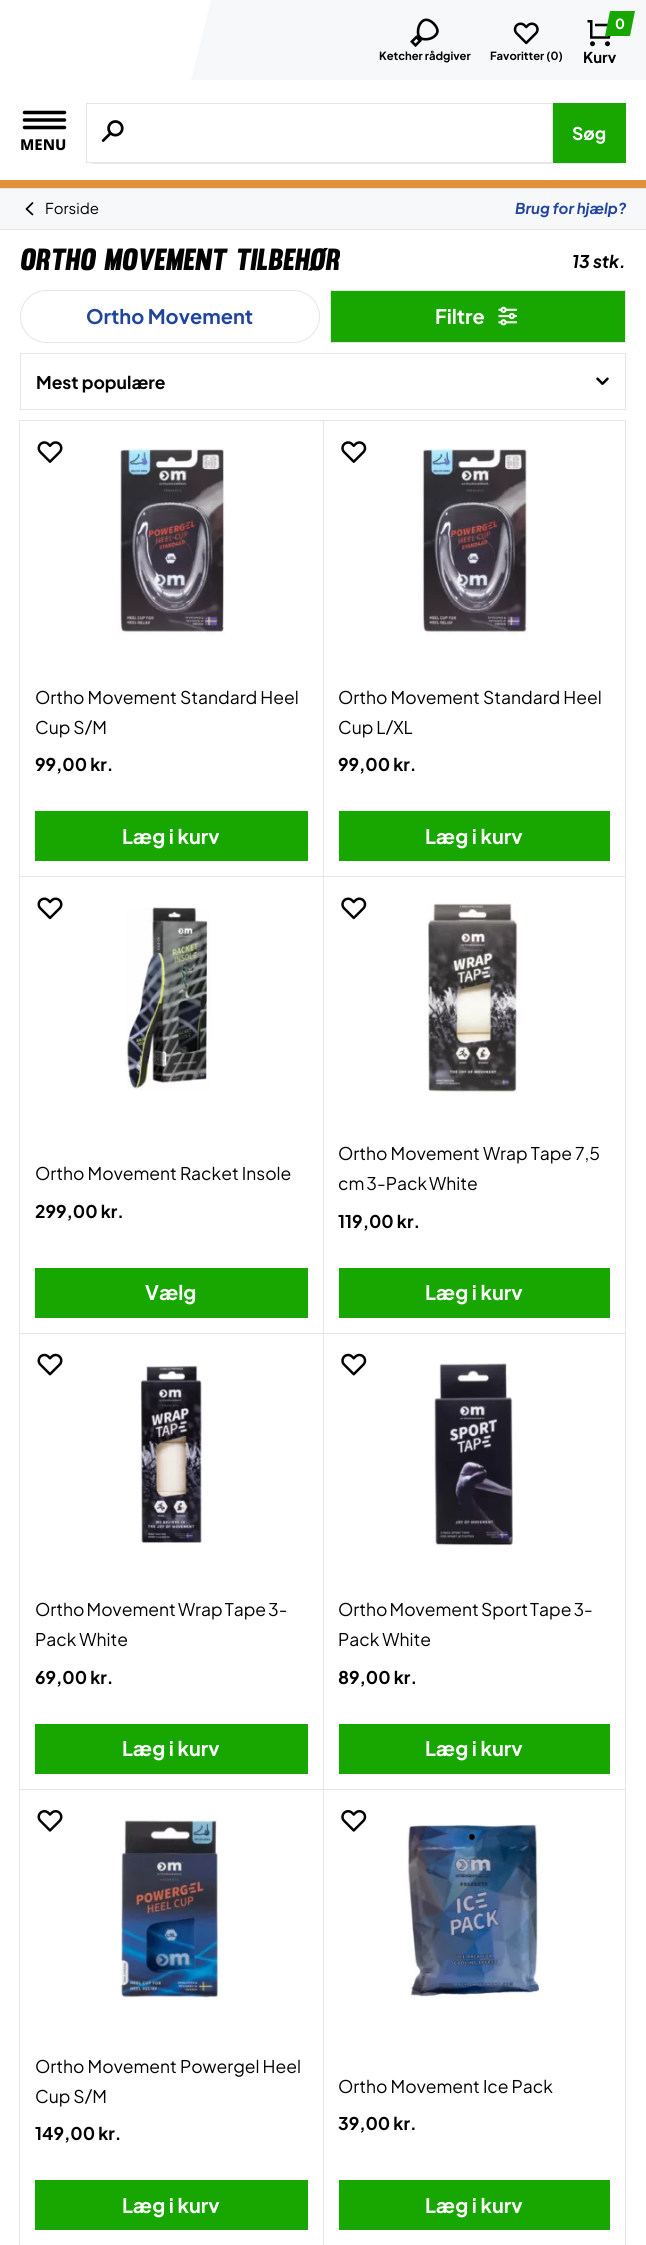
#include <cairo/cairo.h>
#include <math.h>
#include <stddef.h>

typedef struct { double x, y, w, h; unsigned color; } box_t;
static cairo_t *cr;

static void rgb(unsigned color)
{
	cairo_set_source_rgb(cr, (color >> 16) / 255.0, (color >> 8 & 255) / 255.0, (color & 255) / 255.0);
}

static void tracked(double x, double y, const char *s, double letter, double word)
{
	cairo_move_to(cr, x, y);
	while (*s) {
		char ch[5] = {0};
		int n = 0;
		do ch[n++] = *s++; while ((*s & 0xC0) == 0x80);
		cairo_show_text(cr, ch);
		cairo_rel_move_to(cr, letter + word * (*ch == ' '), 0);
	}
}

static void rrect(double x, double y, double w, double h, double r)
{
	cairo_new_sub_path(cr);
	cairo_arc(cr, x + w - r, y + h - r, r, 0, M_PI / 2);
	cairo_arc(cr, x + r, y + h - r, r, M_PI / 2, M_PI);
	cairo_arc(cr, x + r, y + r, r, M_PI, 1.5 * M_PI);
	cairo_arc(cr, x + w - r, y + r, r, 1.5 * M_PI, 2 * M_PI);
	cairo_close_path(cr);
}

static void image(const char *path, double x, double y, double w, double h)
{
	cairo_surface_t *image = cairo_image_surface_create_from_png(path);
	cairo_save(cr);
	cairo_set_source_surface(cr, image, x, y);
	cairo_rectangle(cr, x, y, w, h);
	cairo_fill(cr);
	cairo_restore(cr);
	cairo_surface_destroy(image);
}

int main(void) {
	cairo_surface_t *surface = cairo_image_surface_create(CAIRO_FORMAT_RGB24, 646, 2245);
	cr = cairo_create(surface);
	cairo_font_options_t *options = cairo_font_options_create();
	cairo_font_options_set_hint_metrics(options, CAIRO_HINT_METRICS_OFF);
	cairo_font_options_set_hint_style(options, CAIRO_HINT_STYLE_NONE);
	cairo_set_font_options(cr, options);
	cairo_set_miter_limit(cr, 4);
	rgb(0xffffff);
	cairo_paint(cr);
	rgb(0xf6f8fa);
	cairo_rectangle(cr, 226, 0, 420, 80);
	cairo_fill(cr);
	cairo_new_path(cr);
	cairo_move_to(cr, 211, 0);
	cairo_line_to(cr, 246, 0);
	cairo_line_to(cr, 226, 80);
	cairo_line_to(cr, 191, 80);
	cairo_close_path(cr);
	cairo_fill(cr);
	image("img/1.png", 410, 18, 29, 30);
	image("img/2.png", 513, 22, 26, 23);
	image("img/3.png", 587, 20, 24, 27);
	rgb(0x17a700);
	cairo_new_path(cr);
	cairo_move_to(cr, 610, 11);
	cairo_line_to(cr, 635, 11);
	cairo_line_to(cr, 630, 36);
	cairo_line_to(cr, 605, 36);
	cairo_close_path(cr);
	cairo_fill(cr);
	cairo_new_path(cr);
	cairo_move_to(cr, 24.5, 112.5);
	cairo_line_to(cr, 64.5, 112.5);
	cairo_move_to(cr, 24.5, 120);
	cairo_line_to(cr, 64.5, 120);
	cairo_move_to(cr, 24.5, 127.5);
	cairo_line_to(cr, 64.5, 127.5);
	rgb(0x000000);
	cairo_set_line_width(cr, 3.5);
	cairo_set_line_cap(cr, CAIRO_LINE_CAP_ROUND);
	cairo_set_line_join(cr, CAIRO_LINE_JOIN_ROUND);
	cairo_stroke(cr);
	rgb(0xe8e8e8);
	cairo_new_path(cr);
	cairo_move_to(cr, 86, 110);
	cairo_line_to(cr, 86, 156);
	cairo_curve_to(cr, 86, 160, 90, 164, 94, 164);
	cairo_line_to(cr, 618, 164);
	cairo_curve_to(cr, 622, 164, 625, 161, 626, 157);
	cairo_curve_to(cr, 625, 160, 622, 162, 619, 162);
	cairo_line_to(cr, 94, 162);
	cairo_curve_to(cr, 90, 162, 86, 159, 86, 155);
	cairo_close_path(cr);
	cairo_fill(cr);
	rgb(0xffffff);
	cairo_rectangle(cr, 87, 158, 6, 4);
	cairo_fill(cr);
	cairo_rectangle(cr, 86.5, 103.5, 466, 59);
	rgb(0xe5e5e5);
	cairo_set_line_width(cr, 1);
	cairo_set_line_cap(cr, CAIRO_LINE_CAP_BUTT);
	cairo_set_line_join(cr, CAIRO_LINE_JOIN_MITER);
	cairo_stroke(cr);
	image("img/4.png", 101, 120, 23, 22);
	{
		static const box_t items[] = {
			{553, 103, 73, 60, 0x17a700},
			{0, 180, 646, 8, 0xe1903c},
			{0, 189, 646, 40, 0xf6f8fa},
			{0, 188, 646, 1, 0xe5e5e5},
			{0, 229, 646, 1, 0xe5e5e5},
		};
		for (size_t i = 0; i < sizeof items / sizeof *items; i++) {
			rgb(items[i].color);
			cairo_rectangle(cr, items[i].x, items[i].y, items[i].w, items[i].h);
			cairo_fill(cr);
		}
	}
	cairo_new_path(cr);
	cairo_move_to(cr, 32.5, 214.5);
	cairo_line_to(cr, 26.5, 209);
	cairo_line_to(cr, 32.5, 203);
	rgb(0x000000);
	cairo_set_line_width(cr, 1.7);
	cairo_set_line_cap(cr, CAIRO_LINE_CAP_ROUND);
	cairo_set_line_join(cr, CAIRO_LINE_JOIN_ROUND);
	cairo_stroke(cr);
	rrect(20.5, 290.5, 299, 52, 26);
	rgb(0xe5e5e5);
	cairo_set_line_width(cr, 1);
	cairo_set_line_cap(cr, CAIRO_LINE_CAP_BUTT);
	cairo_set_line_join(cr, CAIRO_LINE_JOIN_MITER);
	cairo_stroke(cr);
	rgb(0x17a700);
	cairo_rectangle(cr, 330.5, 290.5, 295, 52);
	cairo_fill_preserve(cr);
	rgb(0xe5e5e5);
	cairo_stroke(cr);
	image("img/5.png", 498, 306, 20, 20);
	cairo_rectangle(cr, 20.5, 353.5, 605, 56);
	cairo_stroke(cr);
	image("img/6.png", 596, 377, 13, 8);
	cairo_rectangle(cr, 19.5, 420.5, 304, 457);
	cairo_stroke(cr);
	image("img/7.png", 37, 441, 26, 22);
	image("img/8.png", 118, 448, 107, 187);
	rgb(0x17a700);
	cairo_rectangle(cr, 35, 811, 273, 50);
	cairo_fill(cr);
	cairo_rectangle(cr, 323.5, 420.5, 302, 457);
	rgb(0xe5e5e5);
	cairo_stroke(cr);
	image("img/9.png", 341, 441, 26, 22);
	image("img/10.png", 420, 448, 108, 187);
	rgb(0x17a700);
	cairo_rectangle(cr, 339, 811, 271, 50);
	cairo_fill(cr);
	rgb(0xffffff);
	cairo_rectangle(cr, 20, 877, 303, 1);
	cairo_fill(cr);
	cairo_rectangle(cr, 19.5, 876.5, 304, 457);
	rgb(0xe5e5e5);
	cairo_stroke(cr);
	image("img/11.png", 37, 897, 26, 23);
	image("img/12.png", 125, 907, 86, 184);
	rgb(0x17a700);
	cairo_rectangle(cr, 35, 1268, 273, 50);
	cairo_fill(cr);
	rgb(0xffffff);
	cairo_rectangle(cr, 324, 877, 301, 1);
	cairo_fill(cr);
	cairo_rectangle(cr, 323.5, 876.5, 302, 457);
	rgb(0xe5e5e5);
	cairo_stroke(cr);
	image("img/13.png", 341, 897, 26, 23);
	image("img/14.png", 427, 901, 92, 193);
	rgb(0x17a700);
	cairo_rectangle(cr, 339, 1268, 271, 50);
	cairo_fill(cr);
	cairo_rectangle(cr, 19.5, 1333.5, 304, 456);
	rgb(0xe5e5e5);
	cairo_stroke(cr);
	image("img/15.png", 37, 1353, 26, 23);
	image("img/16.png", 139, 1365, 64, 178);
	rgb(0x17a700);
	cairo_rectangle(cr, 35, 1724, 273, 50);
	cairo_fill(cr);
	cairo_rectangle(cr, 323.5, 1333.5, 302, 456);
	rgb(0xe5e5e5);
	cairo_stroke(cr);
	image("img/17.png", 341, 1353, 26, 23);
	image("img/18.png", 434, 1363, 79, 183);
	rgb(0x17a700);
	cairo_rectangle(cr, 339, 1724, 271, 50);
	cairo_fill(cr);
	cairo_rectangle(cr, 19.5, 1789.5, 304, 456);
	rgb(0xe5e5e5);
	cairo_stroke(cr);
	image("img/19.png", 37, 1810, 26, 22);
	image("img/20.png", 120, 1820, 100, 180);
	rgb(0x17a700);
	cairo_rectangle(cr, 35, 2180, 273, 50);
	cairo_fill(cr);
	cairo_rectangle(cr, 323.5, 1789.5, 302, 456);
	rgb(0xe5e5e5);
	cairo_stroke(cr);
	image("img/21.png", 341, 1810, 26, 22);
	image("img/22.png", 406, 1824, 134, 174);
	rgb(0x17a700);
	cairo_rectangle(cr, 339, 2180, 271, 50);
	cairo_fill(cr);
	cairo_select_font_face(cr, "Plus Jakarta Sans", CAIRO_FONT_SLANT_NORMAL, CAIRO_FONT_WEIGHT_BOLD);
	cairo_set_font_size(cr, 11.25);
	rgb(0x000000);
	cairo_move_to(cr, 379, 60);
	cairo_show_text(cr, "Ketcher rådgiver");
	cairo_move_to(cr, 490, 60);
	cairo_show_text(cr, "Favoritter (0)");
	cairo_set_font_size(cr, 14);
	rgb(0xffffff);
	cairo_move_to(cr, 615, 29);
	cairo_show_text(cr, "0");
	cairo_set_font_size(cr, 15);
	rgb(0x000000);
	cairo_move_to(cr, 583, 63);
	cairo_show_text(cr, "Kurv");
	cairo_select_font_face(cr, "Noto Sans ExtraBold", CAIRO_FONT_SLANT_NORMAL, CAIRO_FONT_WEIGHT_NORMAL);
	cairo_move_to(cr, 20, 150);
	cairo_show_text(cr, "MENU");
	cairo_select_font_face(cr, "Plus Jakarta Sans", CAIRO_FONT_SLANT_NORMAL, CAIRO_FONT_WEIGHT_BOLD);
	cairo_set_font_size(cr, 17.5);
	rgb(0xffffff);
	cairo_move_to(cr, 572, 140);
	cairo_show_text(cr, "Søg");
	cairo_select_font_face(cr, "Plus Jakarta Sans", CAIRO_FONT_SLANT_NORMAL, CAIRO_FONT_WEIGHT_NORMAL);
	cairo_set_font_size(cr, 15);
	rgb(0x000000);
	cairo_move_to(cr, 45, 214);
	cairo_show_text(cr, "Forside");
	cairo_select_font_face(cr, "Plus Jakarta Sans", CAIRO_FONT_SLANT_ITALIC, CAIRO_FONT_WEIGHT_BOLD);
	rgb(0x21459f);
	cairo_move_to(cr, 515, 214);
	cairo_show_text(cr, "Brug for hjælp?");
	cairo_select_font_face(cr, "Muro", CAIRO_FONT_SLANT_ITALIC, CAIRO_FONT_WEIGHT_NORMAL);
	cairo_set_font_size(cr, 30);
	rgb(0x000000);
	cairo_move_to(cr, 20, 270);
	cairo_show_text(cr, "Ortho Movement Tilbehør");
	cairo_select_font_face(cr, "Plus Jakarta Sans", CAIRO_FONT_SLANT_ITALIC, CAIRO_FONT_WEIGHT_BOLD);
	cairo_set_font_size(cr, 17.5);
	cairo_move_to(cr, 572, 268);
	cairo_show_text(cr, "13 stk.");
	cairo_select_font_face(cr, "Plus Jakarta Sans", CAIRO_FONT_SLANT_NORMAL, CAIRO_FONT_WEIGHT_BOLD);
	cairo_set_font_size(cr, 20);
	rgb(0x21459f);
	cairo_move_to(cr, 86, 324);
	cairo_show_text(cr, "Ortho Movement");
	rgb(0xffffff);
	cairo_move_to(cr, 435, 324);
	cairo_show_text(cr, "Filtre");
	cairo_set_font_size(cr, 17.5);
	rgb(0x000000);
	cairo_move_to(cr, 36, 389);
	cairo_show_text(cr, "Mest populære");
	cairo_select_font_face(cr, "Plus Jakarta Sans", CAIRO_FONT_SLANT_NORMAL, CAIRO_FONT_WEIGHT_NORMAL);
	cairo_move_to(cr, 35, 704);
	cairo_show_text(cr, "Ortho Movement Standard Heel");
	cairo_move_to(cr, 35, 734);
	cairo_show_text(cr, "Cup S/M");
	cairo_select_font_face(cr, "Plus Jakarta Sans", CAIRO_FONT_SLANT_NORMAL, CAIRO_FONT_WEIGHT_BOLD);
	cairo_move_to(cr, 35, 771);
	cairo_show_text(cr, "99,00 kr.");
	cairo_set_font_size(cr, 20);
	rgb(0xffffff);
	cairo_move_to(cr, 122, 844);
	cairo_show_text(cr, "Læg i kurv");
	cairo_select_font_face(cr, "Plus Jakarta Sans", CAIRO_FONT_SLANT_NORMAL, CAIRO_FONT_WEIGHT_NORMAL);
	cairo_set_font_size(cr, 17.5);
	rgb(0x000000);
	cairo_move_to(cr, 338, 704);
	cairo_show_text(cr, "Ortho Movement Standard Heel");
	cairo_move_to(cr, 338, 734);
	cairo_show_text(cr, "Cup L/XL");
	cairo_select_font_face(cr, "Plus Jakarta Sans", CAIRO_FONT_SLANT_NORMAL, CAIRO_FONT_WEIGHT_BOLD);
	cairo_move_to(cr, 338, 771);
	cairo_show_text(cr, "99,00 kr.");
	cairo_set_font_size(cr, 20);
	rgb(0xffffff);
	cairo_move_to(cr, 425, 844);
	cairo_show_text(cr, "Læg i kurv");
	cairo_select_font_face(cr, "Plus Jakarta Sans", CAIRO_FONT_SLANT_NORMAL, CAIRO_FONT_WEIGHT_NORMAL);
	cairo_set_font_size(cr, 17.5);
	rgb(0x000000);
	cairo_move_to(cr, 35, 1180);
	cairo_show_text(cr, "Ortho Movement Racket Insole");
	cairo_select_font_face(cr, "Plus Jakarta Sans", CAIRO_FONT_SLANT_NORMAL, CAIRO_FONT_WEIGHT_BOLD);
	cairo_move_to(cr, 35, 1218);
	cairo_show_text(cr, "299,00 kr.");
	cairo_set_font_size(cr, 20);
	rgb(0xffffff);
	cairo_move_to(cr, 145, 1300);
	cairo_show_text(cr, "Vælg");
	cairo_select_font_face(cr, "Plus Jakarta Sans", CAIRO_FONT_SLANT_NORMAL, CAIRO_FONT_WEIGHT_NORMAL);
	cairo_set_font_size(cr, 17.5);
	rgb(0x000000);
	cairo_move_to(cr, 338, 1160);
	cairo_show_text(cr, "Ortho Movement Wrap Tape 7,5");
	tracked(338, 1190, "cm 3-Pack White", 0, -1);
	cairo_select_font_face(cr, "Plus Jakarta Sans", CAIRO_FONT_SLANT_NORMAL, CAIRO_FONT_WEIGHT_BOLD);
	cairo_move_to(cr, 338, 1228);
	cairo_show_text(cr, "119,00 kr.");
	cairo_set_font_size(cr, 20);
	rgb(0xffffff);
	cairo_move_to(cr, 425, 1300);
	cairo_show_text(cr, "Læg i kurv");
	cairo_select_font_face(cr, "Plus Jakarta Sans", CAIRO_FONT_SLANT_NORMAL, CAIRO_FONT_WEIGHT_NORMAL);
	cairo_set_font_size(cr, 17.5);
	rgb(0x000000);
	tracked(35, 1616, "Ortho Movement Wrap Tape 3-", 0, -1);
	cairo_move_to(cr, 35, 1646);
	cairo_show_text(cr, "Pack White");
	cairo_select_font_face(cr, "Plus Jakarta Sans", CAIRO_FONT_SLANT_NORMAL, CAIRO_FONT_WEIGHT_BOLD);
	cairo_move_to(cr, 35, 1684);
	cairo_show_text(cr, "69,00 kr.");
	cairo_set_font_size(cr, 20);
	rgb(0xffffff);
	cairo_move_to(cr, 122, 1756);
	cairo_show_text(cr, "Læg i kurv");
	cairo_select_font_face(cr, "Plus Jakarta Sans", CAIRO_FONT_SLANT_NORMAL, CAIRO_FONT_WEIGHT_NORMAL);
	cairo_set_font_size(cr, 17.5);
	rgb(0x000000);
	tracked(338, 1616, "Ortho Movement Sport Tape 3-", 0, -1);
	cairo_move_to(cr, 338, 1646);
	cairo_show_text(cr, "Pack White");
	cairo_select_font_face(cr, "Plus Jakarta Sans", CAIRO_FONT_SLANT_NORMAL, CAIRO_FONT_WEIGHT_BOLD);
	cairo_move_to(cr, 338, 1684);
	cairo_show_text(cr, "89,00 kr.");
	cairo_set_font_size(cr, 20);
	rgb(0xffffff);
	cairo_move_to(cr, 425, 1756);
	cairo_show_text(cr, "Læg i kurv");
	cairo_select_font_face(cr, "Plus Jakarta Sans", CAIRO_FONT_SLANT_NORMAL, CAIRO_FONT_WEIGHT_NORMAL);
	cairo_set_font_size(cr, 17.5);
	rgb(0x000000);
	cairo_move_to(cr, 35, 2073);
	cairo_show_text(cr, "Ortho Movement Powergel Heel");
	cairo_move_to(cr, 35, 2103);
	cairo_show_text(cr, "Cup S/M");
	cairo_select_font_face(cr, "Plus Jakarta Sans", CAIRO_FONT_SLANT_NORMAL, CAIRO_FONT_WEIGHT_BOLD);
	cairo_move_to(cr, 35, 2140);
	cairo_show_text(cr, "149,00 kr.");
	cairo_set_font_size(cr, 20);
	rgb(0xffffff);
	cairo_move_to(cr, 122, 2213);
	cairo_show_text(cr, "Læg i kurv");
	cairo_select_font_face(cr, "Plus Jakarta Sans", CAIRO_FONT_SLANT_NORMAL, CAIRO_FONT_WEIGHT_NORMAL);
	cairo_set_font_size(cr, 17.5);
	rgb(0x000000);
	cairo_move_to(cr, 338, 2093);
	cairo_show_text(cr, "Ortho Movement Ice Pack");
	cairo_select_font_face(cr, "Plus Jakarta Sans", CAIRO_FONT_SLANT_NORMAL, CAIRO_FONT_WEIGHT_BOLD);
	cairo_move_to(cr, 338, 2130);
	cairo_show_text(cr, "39,00 kr.");
	cairo_set_font_size(cr, 20);
	rgb(0xffffff);
	cairo_move_to(cr, 425, 2213);
	cairo_show_text(cr, "Læg i kurv");
	cairo_surface_write_to_png(surface, "page.png");
	cairo_font_options_destroy(options);
	cairo_destroy(cr);
	cairo_surface_destroy(surface);
	return 0;
}
